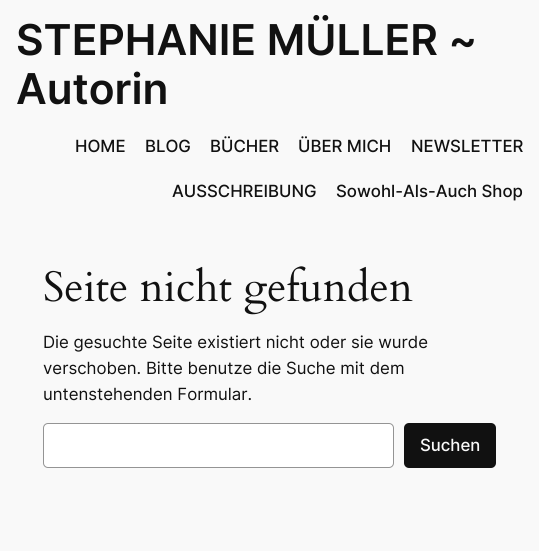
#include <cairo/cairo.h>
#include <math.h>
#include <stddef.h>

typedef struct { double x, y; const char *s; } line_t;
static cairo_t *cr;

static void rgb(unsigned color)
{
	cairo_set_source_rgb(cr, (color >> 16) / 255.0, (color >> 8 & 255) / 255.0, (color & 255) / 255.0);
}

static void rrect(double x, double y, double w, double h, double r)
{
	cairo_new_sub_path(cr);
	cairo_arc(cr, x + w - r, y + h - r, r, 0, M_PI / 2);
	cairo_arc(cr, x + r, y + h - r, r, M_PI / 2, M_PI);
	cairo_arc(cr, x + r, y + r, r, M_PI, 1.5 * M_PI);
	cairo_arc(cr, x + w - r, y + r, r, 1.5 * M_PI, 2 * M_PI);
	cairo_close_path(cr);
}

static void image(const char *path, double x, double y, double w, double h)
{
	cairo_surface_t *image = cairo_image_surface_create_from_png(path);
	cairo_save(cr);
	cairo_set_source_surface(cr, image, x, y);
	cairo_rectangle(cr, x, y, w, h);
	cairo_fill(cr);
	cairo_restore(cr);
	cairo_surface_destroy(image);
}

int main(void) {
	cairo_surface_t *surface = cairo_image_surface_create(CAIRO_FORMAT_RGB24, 539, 551);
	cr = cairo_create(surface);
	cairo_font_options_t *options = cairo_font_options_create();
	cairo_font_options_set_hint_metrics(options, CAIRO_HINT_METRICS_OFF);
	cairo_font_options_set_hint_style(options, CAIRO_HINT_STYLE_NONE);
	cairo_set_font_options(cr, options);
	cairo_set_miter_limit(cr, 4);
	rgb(0xf9f9f9);
	cairo_paint(cr);
	image("img/1.png", 44, 266, 369, 49);
	rgb(0xffffff);
	rrect(43.5, 423.5, 350, 44, 4.5);
	cairo_fill_preserve(cr);
	rgb(0x949494);
	cairo_set_line_width(cr, 1);
	cairo_stroke(cr);
	rgb(0x111111);
	rrect(404, 423, 92, 45, 5);
	cairo_fill(cr);
	cairo_select_font_face(cr, "Inter SemiBold", CAIRO_FONT_SLANT_NORMAL, CAIRO_FONT_WEIGHT_NORMAL);
	cairo_set_font_size(cr, 42.5);
	cairo_move_to(cr, 16, 55);
	cairo_show_text(cr, "STEPHANIE MÜLLER ~");
	cairo_move_to(cr, 16, 104);
	cairo_show_text(cr, "Autorin");
	cairo_select_font_face(cr, "Inter Medium", CAIRO_FONT_SLANT_NORMAL, CAIRO_FONT_WEIGHT_NORMAL);
	cairo_set_font_size(cr, 16.8);
	{
		static const line_t items[] = {
			{75, 152, "HOME"},
			{145, 152, "BLOG"},
			{210, 152, "BÜCHER"},
			{298, 152, "ÜBER MICH"},
			{411, 152, "NEWSLETTER"},
			{172, 197, "AUSSCHREIBUNG"},
			{336, 197, "Sowohl-Als-Auch Shop"},
		};
		for (size_t i = 0; i < sizeof items / sizeof *items; i++) {
			cairo_move_to(cr, items[i].x, items[i].y);
			cairo_show_text(cr, items[i].s);
		}
	}
	cairo_select_font_face(cr, "Inter", CAIRO_FONT_SLANT_NORMAL, CAIRO_FONT_WEIGHT_NORMAL);
	{
		static const line_t items[] = {
			{43, 348, "Die gesuchte Seite existiert nicht oder sie wurde"},
			{43, 374, "verschoben. Bitte benutze die Suche mit dem"},
			{43, 400, "untenstehenden Formular."},
		};
		for (size_t i = 0; i < sizeof items / sizeof *items; i++) {
			cairo_move_to(cr, items[i].x, items[i].y);
			cairo_show_text(cr, items[i].s);
		}
	}
	cairo_select_font_face(cr, "Inter Medium", CAIRO_FONT_SLANT_NORMAL, CAIRO_FONT_WEIGHT_NORMAL);
	rgb(0xf9f9f9);
	cairo_move_to(cr, 420, 451);
	cairo_show_text(cr, "Suchen");
	cairo_surface_write_to_png(surface, "page.png");
	cairo_font_options_destroy(options);
	cairo_destroy(cr);
	cairo_surface_destroy(surface);
	return 0;
}
